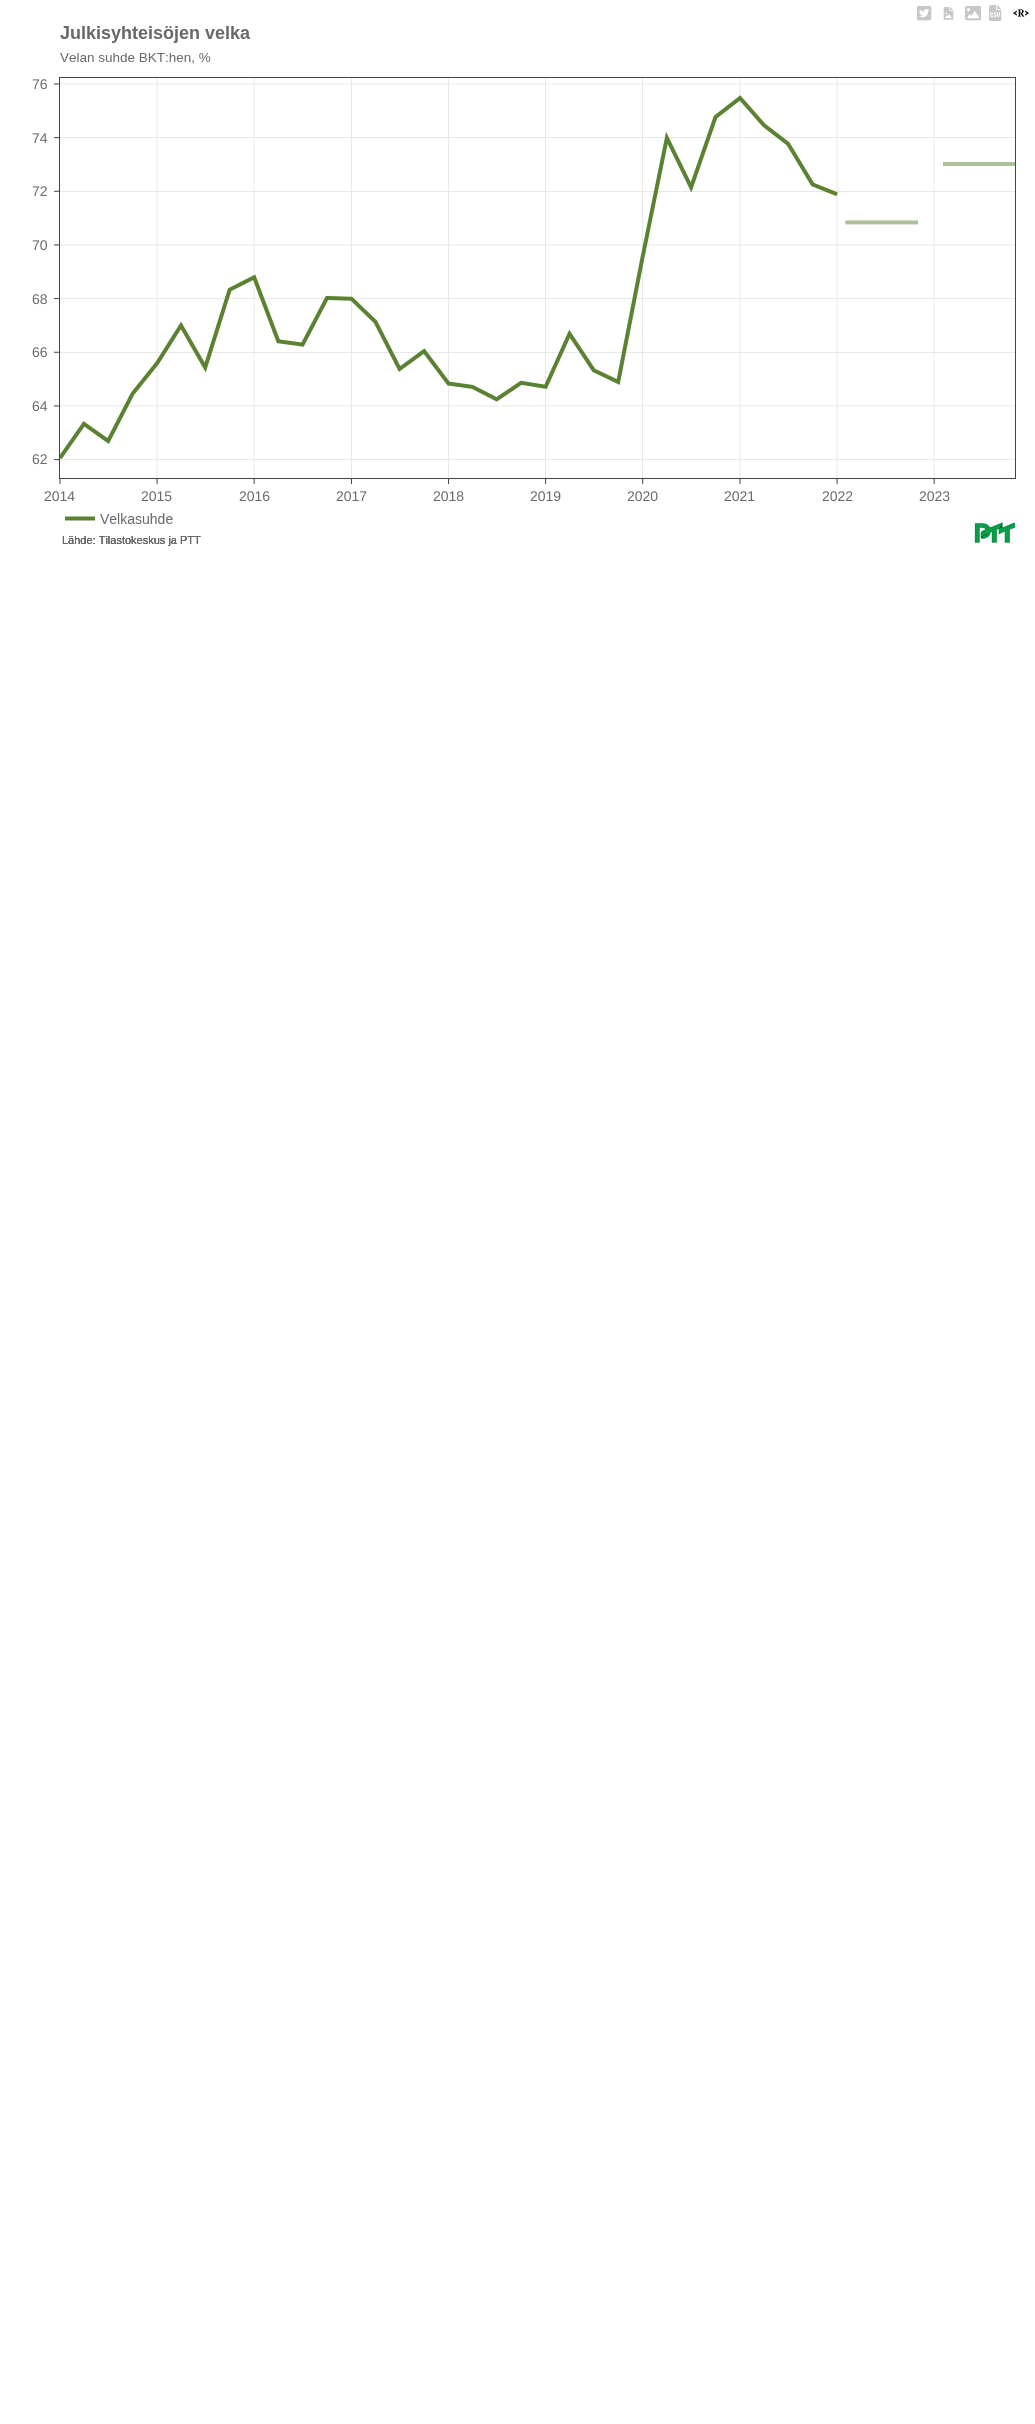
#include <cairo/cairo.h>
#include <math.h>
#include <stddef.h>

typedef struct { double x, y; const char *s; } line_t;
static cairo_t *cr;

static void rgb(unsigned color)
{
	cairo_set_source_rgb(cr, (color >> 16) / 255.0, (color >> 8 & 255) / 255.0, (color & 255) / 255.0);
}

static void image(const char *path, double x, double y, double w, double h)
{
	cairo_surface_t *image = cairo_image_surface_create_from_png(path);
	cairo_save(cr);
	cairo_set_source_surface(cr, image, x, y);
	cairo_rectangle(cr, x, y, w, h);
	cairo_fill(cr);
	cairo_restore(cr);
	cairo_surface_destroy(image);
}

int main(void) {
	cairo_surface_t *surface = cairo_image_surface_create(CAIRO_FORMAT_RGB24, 1035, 2424);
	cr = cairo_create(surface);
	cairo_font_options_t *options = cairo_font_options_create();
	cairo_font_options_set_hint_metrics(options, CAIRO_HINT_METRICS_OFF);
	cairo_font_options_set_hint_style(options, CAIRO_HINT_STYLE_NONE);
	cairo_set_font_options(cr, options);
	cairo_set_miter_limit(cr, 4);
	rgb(0xffffff);
	cairo_paint(cr);
	image("img/1.png", 917, 6, 15, 15);
	image("img/2.png", 943, 7, 11, 13);
	image("img/3.png", 965, 6, 16, 15);
	image("img/4.png", 989, 5, 13, 16);
	image("img/5.png", 1013, 9, 16, 8);
	image("img/7.png", 54, 77, 962, 407);
	cairo_select_font_face(cr, "Liberation Sans", CAIRO_FONT_SLANT_NORMAL, CAIRO_FONT_WEIGHT_NORMAL);
	cairo_set_font_size(cr, 14);
	rgb(0x696969);
	{
		static const line_t items[] = {
			{32, 89, "76"},
			{32, 143, "74"},
			{32, 196, "72"},
			{32, 250, "70"},
			{32, 304, "68"},
			{32, 357, "66"},
			{32, 411, "64"},
			{32, 464, "62"},
			{44, 501, "2014"},
			{141, 501, "2015"},
			{239, 501, "2016"},
			{336, 501, "2017"},
			{433, 501, "2018"},
			{530, 501, "2019"},
			{627, 501, "2020"},
			{724, 501, "2021"},
			{822, 501, "2022"},
			{919, 501, "2023"},
		};
		for (size_t i = 0; i < sizeof items / sizeof *items; i++) {
			cairo_move_to(cr, items[i].x, items[i].y);
			cairo_show_text(cr, items[i].s);
		}
	}
	image("img/6.png", 60, 26, 955, 520);
	cairo_surface_write_to_png(surface, "page.png");
	cairo_font_options_destroy(options);
	cairo_destroy(cr);
	cairo_surface_destroy(surface);
	return 0;
}
